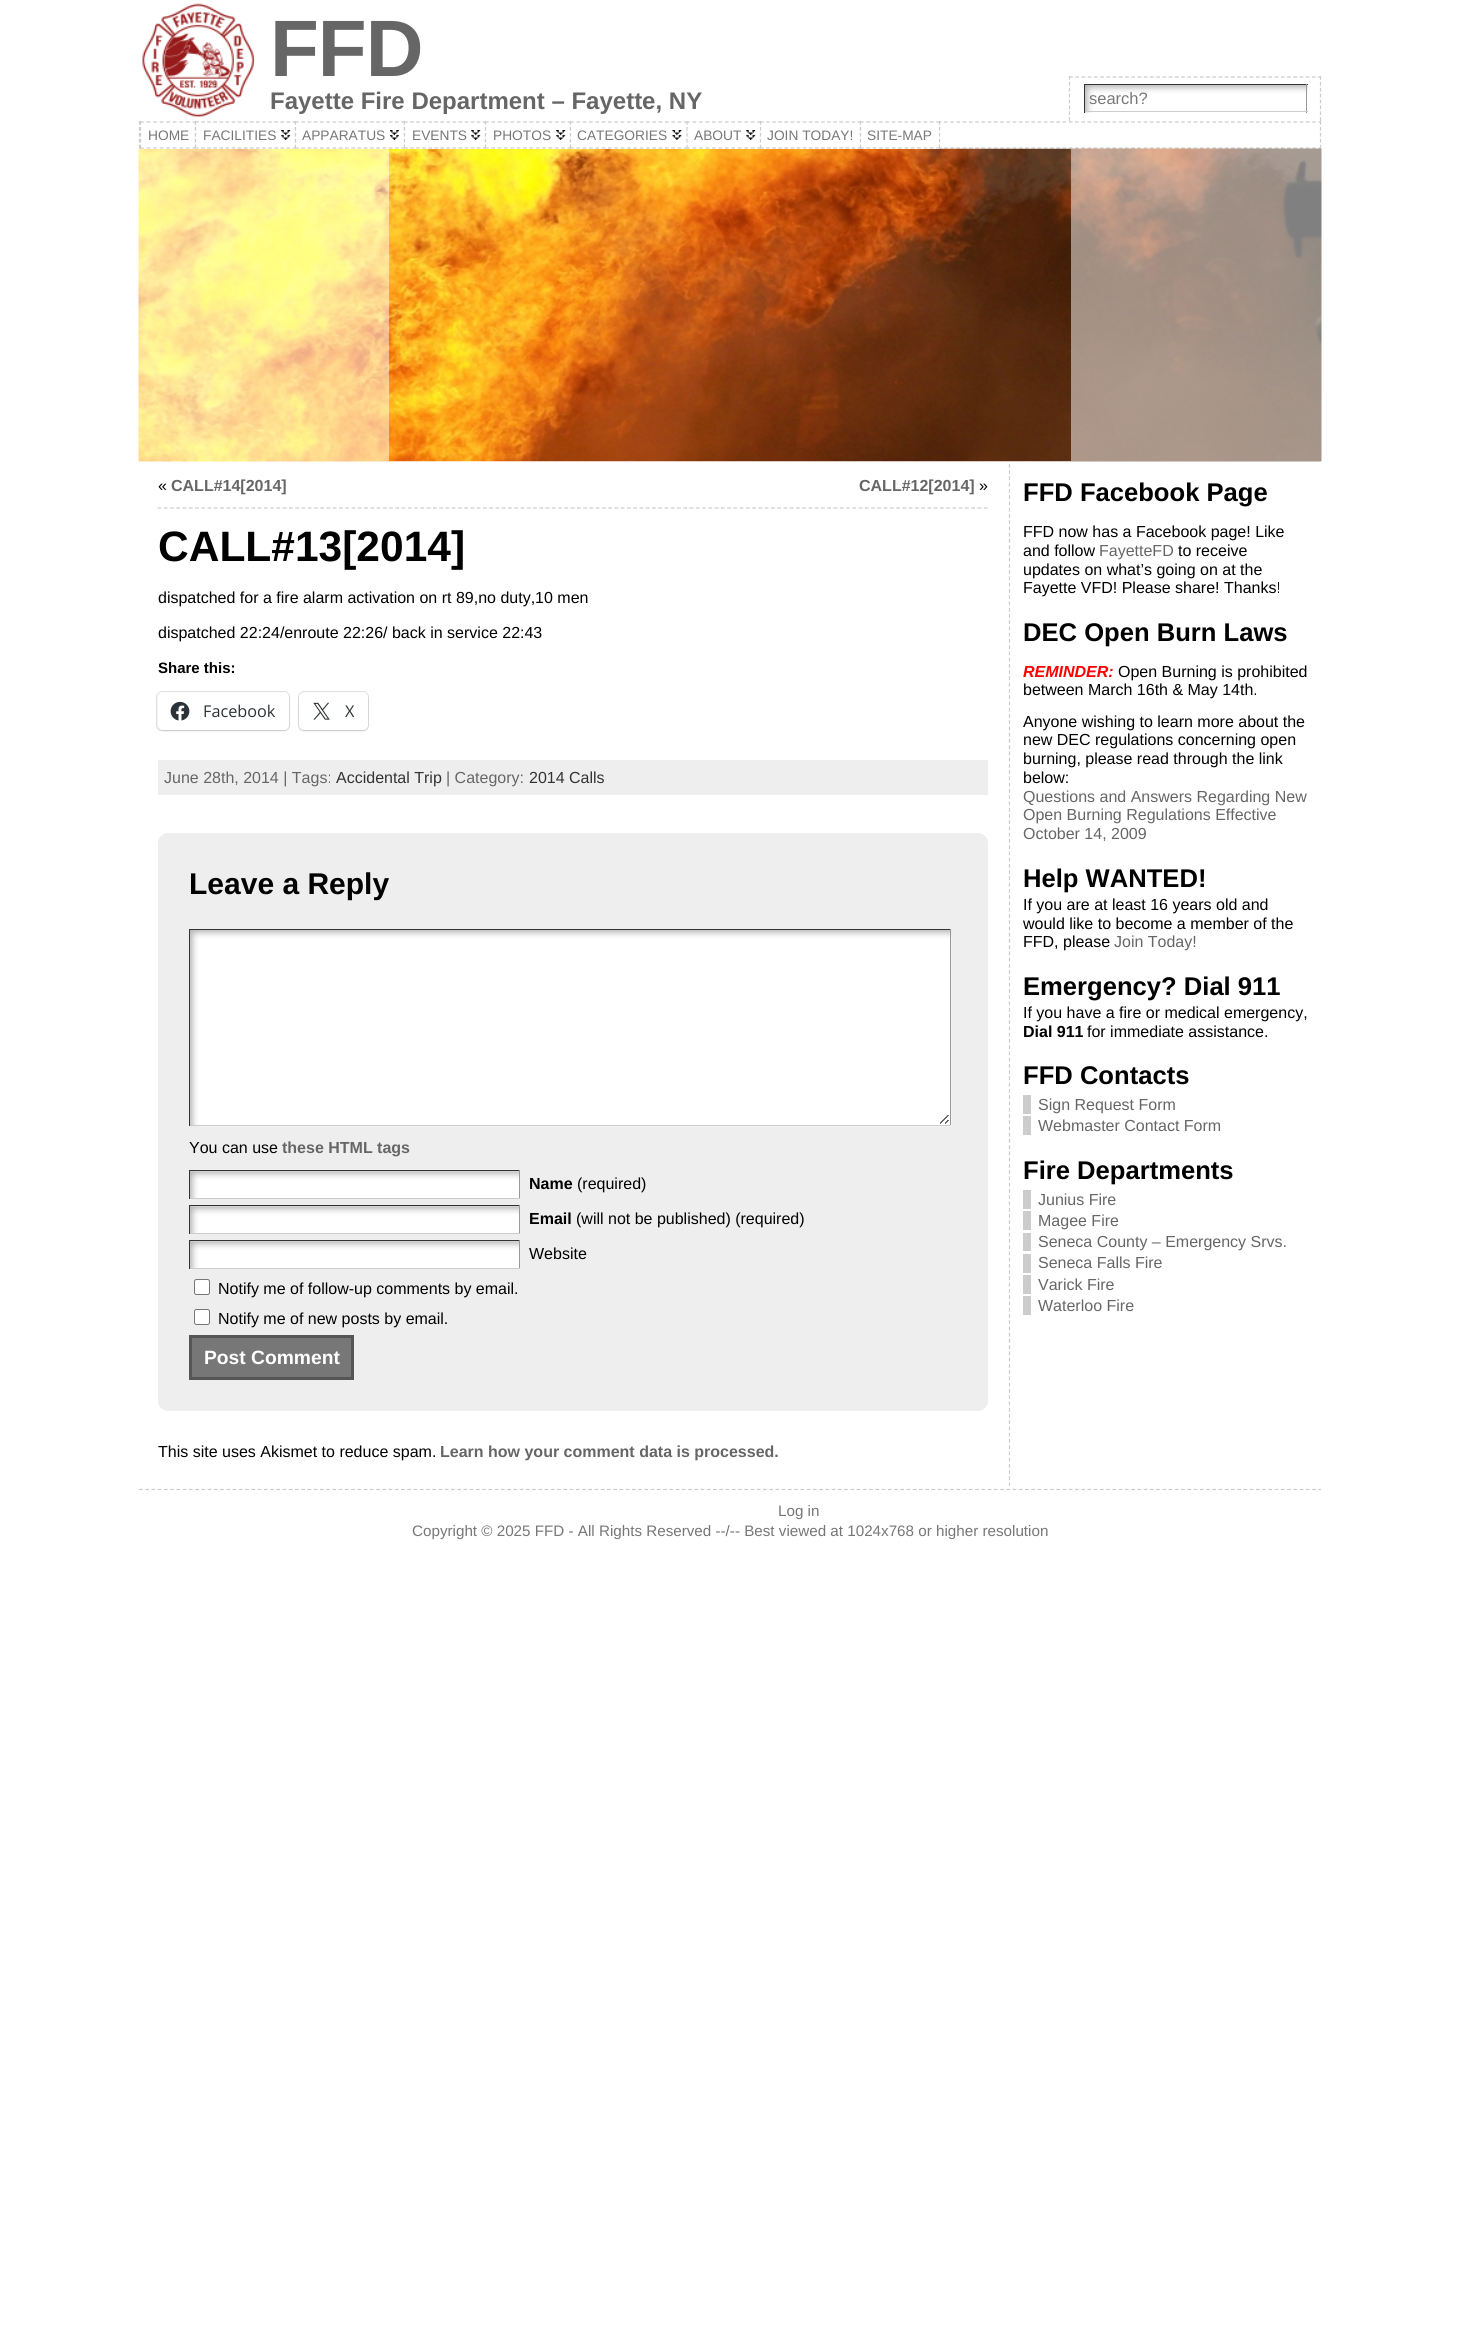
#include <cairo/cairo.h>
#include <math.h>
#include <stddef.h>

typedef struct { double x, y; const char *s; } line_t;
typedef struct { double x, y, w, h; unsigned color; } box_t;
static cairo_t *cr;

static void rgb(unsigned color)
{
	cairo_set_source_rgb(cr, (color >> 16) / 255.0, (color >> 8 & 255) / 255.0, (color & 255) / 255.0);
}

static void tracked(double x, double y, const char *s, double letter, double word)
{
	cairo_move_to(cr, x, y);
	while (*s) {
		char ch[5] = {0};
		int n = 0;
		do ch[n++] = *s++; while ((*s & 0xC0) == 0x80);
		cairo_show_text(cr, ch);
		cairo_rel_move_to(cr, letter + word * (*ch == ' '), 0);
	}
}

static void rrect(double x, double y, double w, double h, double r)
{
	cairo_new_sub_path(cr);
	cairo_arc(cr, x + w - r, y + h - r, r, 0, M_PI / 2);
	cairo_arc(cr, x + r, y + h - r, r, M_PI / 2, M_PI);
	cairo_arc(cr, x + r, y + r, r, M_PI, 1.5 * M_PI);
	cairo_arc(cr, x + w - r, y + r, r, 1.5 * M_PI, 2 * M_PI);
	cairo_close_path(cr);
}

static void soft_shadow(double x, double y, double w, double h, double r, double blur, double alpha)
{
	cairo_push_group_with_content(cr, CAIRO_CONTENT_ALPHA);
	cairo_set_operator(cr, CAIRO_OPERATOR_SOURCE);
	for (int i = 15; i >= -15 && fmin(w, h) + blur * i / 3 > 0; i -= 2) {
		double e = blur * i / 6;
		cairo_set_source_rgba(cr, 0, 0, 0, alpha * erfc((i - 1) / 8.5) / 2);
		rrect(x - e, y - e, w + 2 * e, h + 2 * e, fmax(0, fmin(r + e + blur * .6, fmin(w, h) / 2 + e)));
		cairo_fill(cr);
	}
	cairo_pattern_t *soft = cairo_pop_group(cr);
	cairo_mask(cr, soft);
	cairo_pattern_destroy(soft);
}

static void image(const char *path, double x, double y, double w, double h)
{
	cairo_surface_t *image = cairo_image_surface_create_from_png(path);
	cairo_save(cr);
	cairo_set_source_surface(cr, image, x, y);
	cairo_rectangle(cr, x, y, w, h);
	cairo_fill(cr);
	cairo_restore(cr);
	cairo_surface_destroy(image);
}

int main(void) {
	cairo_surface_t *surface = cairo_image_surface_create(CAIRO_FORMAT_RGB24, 1459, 2343);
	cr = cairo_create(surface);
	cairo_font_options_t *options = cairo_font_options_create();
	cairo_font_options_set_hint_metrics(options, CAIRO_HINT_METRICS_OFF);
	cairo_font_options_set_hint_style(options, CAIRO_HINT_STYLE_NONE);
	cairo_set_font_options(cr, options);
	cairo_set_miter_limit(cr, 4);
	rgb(0xffffff);
	cairo_paint(cr);
	image("img/1.png", 142, 3, 113, 115);
	cairo_new_path(cr);
	cairo_move_to(cr, 1069, 77);
	cairo_line_to(cr, 1321, 77);
	rgb(0xcccccc);
	cairo_set_line_width(cr, 1.2);
	cairo_set_dash(cr, (double[]){3.75, 2.48}, 2, 0);
	cairo_stroke(cr);
	cairo_new_path(cr);
	cairo_move_to(cr, 1320.5, 76);
	cairo_line_to(cr, 1320.5, 121);
	cairo_set_dash(cr, (double[]){3.75, 2.14}, 2, 0);
	cairo_stroke(cr);
	cairo_new_path(cr);
	cairo_move_to(cr, 1069.5, 76);
	cairo_line_to(cr, 1069.5, 121);
	cairo_stroke(cr);
	image("img/2.png", 1085, 85, 223, 28);
	{
		static const box_t items[] = {
			{1084, 84, 224, 1, 0x333333},
			{1306, 84, 1, 29, 0x999999},
			{1084, 111, 224, 1, 0xcccccc},
			{1084, 84, 1, 29, 0x333333},
		};
		for (size_t i = 0; i < sizeof items / sizeof *items; i++) {
			rgb(items[i].color);
			cairo_rectangle(cr, items[i].x, items[i].y, items[i].w, items[i].h);
			cairo_fill(cr);
		}
	}
	cairo_new_path(cr);
	cairo_move_to(cr, 139, 122);
	cairo_line_to(cr, 1321, 122);
	rgb(0xcccccc);
	cairo_set_dash(cr, (double[]){3.75, 2.49}, 2, 0);
	cairo_stroke(cr);
	cairo_new_path(cr);
	cairo_move_to(cr, 1320.5, 121);
	cairo_line_to(cr, 1320.5, 149);
	cairo_set_dash(cr, (double[]){3.75, 2.19}, 2, 0);
	cairo_stroke(cr);
	cairo_new_path(cr);
	cairo_move_to(cr, 139, 148);
	cairo_line_to(cr, 1321, 148);
	cairo_set_dash(cr, (double[]){3.75, 2.49}, 2, 0);
	cairo_stroke(cr);
	cairo_new_path(cr);
	cairo_move_to(cr, 139.5, 121);
	cairo_line_to(cr, 139.5, 149);
	cairo_set_dash(cr, (double[]){3.75, 2.19}, 2, 0);
	cairo_stroke(cr);
	image("img/6.png", 138, 148, 1184, 314);
	rgb(0xffffff);
	cairo_rectangle(cr, 140, 121, 55, 28);
	cairo_fill(cr);
	cairo_new_path(cr);
	cairo_move_to(cr, 140, 122);
	cairo_line_to(cr, 196, 122);
	rgb(0xcccccc);
	cairo_set_dash(cr, (double[]){3.75, 2.81}, 2, 0);
	cairo_stroke(cr);
	cairo_new_path(cr);
	cairo_move_to(cr, 195.5, 121);
	cairo_line_to(cr, 195.5, 149);
	cairo_set_dash(cr, (double[]){3.75, 2.19}, 2, 0);
	cairo_stroke(cr);
	cairo_new_path(cr);
	cairo_move_to(cr, 140, 148);
	cairo_line_to(cr, 196, 148);
	cairo_set_dash(cr, (double[]){3.75, 2.81}, 2, 0);
	cairo_stroke(cr);
	cairo_new_path(cr);
	cairo_move_to(cr, 140.5, 121);
	cairo_line_to(cr, 140.5, 149);
	cairo_set_dash(cr, (double[]){3.75, 2.19}, 2, 0);
	cairo_stroke(cr);
	rgb(0xffffff);
	cairo_rectangle(cr, 195, 121, 100, 28);
	cairo_fill(cr);
	image("img/3.png", 281, 130, 10, 10);
	cairo_new_path(cr);
	cairo_move_to(cr, 195, 122);
	cairo_line_to(cr, 296, 122);
	rgb(0xcccccc);
	cairo_set_dash(cr, (double[]){3.75, 2.35}, 2, 0);
	cairo_stroke(cr);
	cairo_new_path(cr);
	cairo_move_to(cr, 295.5, 121);
	cairo_line_to(cr, 295.5, 149);
	cairo_set_dash(cr, (double[]){3.75, 2.19}, 2, 0);
	cairo_stroke(cr);
	cairo_new_path(cr);
	cairo_move_to(cr, 195, 148);
	cairo_line_to(cr, 296, 148);
	cairo_set_dash(cr, (double[]){3.75, 2.35}, 2, 0);
	cairo_stroke(cr);
	cairo_new_path(cr);
	cairo_move_to(cr, 195.5, 121);
	cairo_line_to(cr, 195.5, 149);
	cairo_set_dash(cr, (double[]){3.75, 2.19}, 2, 0);
	cairo_stroke(cr);
	rgb(0xffffff);
	cairo_rectangle(cr, 295, 121, 109, 28);
	cairo_fill(cr);
	image("img/4.png", 390, 130, 9, 10);
	cairo_new_path(cr);
	cairo_move_to(cr, 295, 122);
	cairo_line_to(cr, 405, 122);
	rgb(0xcccccc);
	cairo_set_dash(cr, (double[]){3.75, 2.5}, 2, 0);
	cairo_stroke(cr);
	cairo_new_path(cr);
	cairo_move_to(cr, 404.5, 121);
	cairo_line_to(cr, 404.5, 149);
	cairo_set_dash(cr, (double[]){3.75, 2.19}, 2, 0);
	cairo_stroke(cr);
	cairo_new_path(cr);
	cairo_move_to(cr, 295, 148);
	cairo_line_to(cr, 405, 148);
	cairo_set_dash(cr, (double[]){3.75, 2.5}, 2, 0);
	cairo_stroke(cr);
	cairo_new_path(cr);
	cairo_move_to(cr, 295.5, 121);
	cairo_line_to(cr, 295.5, 149);
	cairo_set_dash(cr, (double[]){3.75, 2.19}, 2, 0);
	cairo_stroke(cr);
	rgb(0xffffff);
	cairo_rectangle(cr, 404, 121, 81, 28);
	cairo_fill(cr);
	image("img/3.png", 471, 130, 10, 10);
	cairo_new_path(cr);
	cairo_move_to(cr, 404, 122);
	cairo_line_to(cr, 486, 122);
	rgb(0xcccccc);
	cairo_set_dash(cr, (double[]){3.75, 2.31}, 2, 0);
	cairo_stroke(cr);
	cairo_new_path(cr);
	cairo_move_to(cr, 485.5, 121);
	cairo_line_to(cr, 485.5, 149);
	cairo_set_dash(cr, (double[]){3.75, 2.19}, 2, 0);
	cairo_stroke(cr);
	cairo_new_path(cr);
	cairo_move_to(cr, 404, 148);
	cairo_line_to(cr, 486, 148);
	cairo_set_dash(cr, (double[]){3.75, 2.31}, 2, 0);
	cairo_stroke(cr);
	cairo_new_path(cr);
	cairo_move_to(cr, 404.5, 121);
	cairo_line_to(cr, 404.5, 149);
	cairo_set_dash(cr, (double[]){3.75, 2.19}, 2, 0);
	cairo_stroke(cr);
	rgb(0xffffff);
	cairo_rectangle(cr, 485, 121, 85, 28);
	cairo_fill(cr);
	image("img/3.png", 556, 130, 10, 10);
	cairo_new_path(cr);
	cairo_move_to(cr, 485, 122);
	cairo_line_to(cr, 571, 122);
	rgb(0xcccccc);
	cairo_set_dash(cr, (double[]){3.75, 2.6}, 2, 0);
	cairo_stroke(cr);
	cairo_new_path(cr);
	cairo_move_to(cr, 570.5, 121);
	cairo_line_to(cr, 570.5, 149);
	cairo_set_dash(cr, (double[]){3.75, 2.19}, 2, 0);
	cairo_stroke(cr);
	cairo_new_path(cr);
	cairo_move_to(cr, 485, 148);
	cairo_line_to(cr, 571, 148);
	cairo_set_dash(cr, (double[]){3.75, 2.6}, 2, 0);
	cairo_stroke(cr);
	cairo_new_path(cr);
	cairo_move_to(cr, 485.5, 121);
	cairo_line_to(cr, 485.5, 149);
	cairo_set_dash(cr, (double[]){3.75, 2.19}, 2, 0);
	cairo_stroke(cr);
	rgb(0xffffff);
	cairo_rectangle(cr, 570, 121, 116, 28);
	cairo_fill(cr);
	image("img/5.png", 672, 130, 10, 10);
	cairo_new_path(cr);
	cairo_move_to(cr, 570, 122);
	cairo_line_to(cr, 687.5, 122);
	rgb(0xcccccc);
	cairo_set_dash(cr, (double[]){3.75, 2.58}, 2, 0);
	cairo_stroke(cr);
	cairo_new_path(cr);
	cairo_move_to(cr, 570, 148);
	cairo_line_to(cr, 687.5, 148);
	cairo_stroke(cr);
	cairo_new_path(cr);
	cairo_move_to(cr, 570.5, 121);
	cairo_line_to(cr, 570.5, 149);
	cairo_set_dash(cr, (double[]){3.75, 2.19}, 2, 0);
	cairo_stroke(cr);
	rgb(0xffffff);
	cairo_rectangle(cr, 686, 121, 74, 28);
	cairo_fill(cr);
	image("img/3.png", 746, 130, 10, 10);
	cairo_new_path(cr);
	cairo_move_to(cr, 686, 122);
	cairo_line_to(cr, 761, 122);
	rgb(0xcccccc);
	cairo_set_dash(cr, (double[]){3.75, 2.73}, 2, 0);
	cairo_stroke(cr);
	cairo_new_path(cr);
	cairo_move_to(cr, 760.5, 121);
	cairo_line_to(cr, 760.5, 149);
	cairo_set_dash(cr, (double[]){3.75, 2.19}, 2, 0);
	cairo_stroke(cr);
	cairo_new_path(cr);
	cairo_move_to(cr, 686, 148);
	cairo_line_to(cr, 761, 148);
	cairo_set_dash(cr, (double[]){3.75, 2.73}, 2, 0);
	cairo_stroke(cr);
	cairo_new_path(cr);
	cairo_move_to(cr, 687, 121);
	cairo_line_to(cr, 687, 149);
	cairo_set_dash(cr, (double[]){3.75, 2.19}, 2, 0);
	cairo_stroke(cr);
	rgb(0xffffff);
	cairo_rectangle(cr, 760, 121, 100, 28);
	cairo_fill(cr);
	cairo_new_path(cr);
	cairo_move_to(cr, 760, 122);
	cairo_line_to(cr, 861, 122);
	rgb(0xcccccc);
	cairo_set_dash(cr, (double[]){3.75, 2.35}, 2, 0);
	cairo_stroke(cr);
	cairo_new_path(cr);
	cairo_move_to(cr, 860.5, 121);
	cairo_line_to(cr, 860.5, 149);
	cairo_set_dash(cr, (double[]){3.75, 2.19}, 2, 0);
	cairo_stroke(cr);
	cairo_new_path(cr);
	cairo_move_to(cr, 760, 148);
	cairo_line_to(cr, 861, 148);
	cairo_set_dash(cr, (double[]){3.75, 2.35}, 2, 0);
	cairo_stroke(cr);
	cairo_new_path(cr);
	cairo_move_to(cr, 760.5, 121);
	cairo_line_to(cr, 760.5, 149);
	cairo_set_dash(cr, (double[]){3.75, 2.19}, 2, 0);
	cairo_stroke(cr);
	rgb(0xffffff);
	cairo_rectangle(cr, 860, 121, 80, 28);
	cairo_fill(cr);
	cairo_new_path(cr);
	cairo_move_to(cr, 860, 122);
	cairo_line_to(cr, 940, 122);
	rgb(0xcccccc);
	cairo_set_dash(cr, (double[]){3.75, 2.6}, 2, 0);
	cairo_stroke(cr);
	cairo_new_path(cr);
	cairo_move_to(cr, 939.5, 121);
	cairo_line_to(cr, 939.5, 149);
	cairo_set_dash(cr, (double[]){3.75, 2.19}, 2, 0);
	cairo_stroke(cr);
	cairo_new_path(cr);
	cairo_move_to(cr, 860, 148);
	cairo_line_to(cr, 940, 148);
	cairo_set_dash(cr, (double[]){3.75, 2.6}, 2, 0);
	cairo_stroke(cr);
	cairo_new_path(cr);
	cairo_move_to(cr, 860.5, 121);
	cairo_line_to(cr, 860.5, 149);
	cairo_set_dash(cr, (double[]){3.75, 2.19}, 2, 0);
	cairo_stroke(cr);
	cairo_set_source_rgba(cr, 1, 1, 1, 0.5);
	cairo_rectangle(cr, 139, 149, 250, 312);
	cairo_fill(cr);
	cairo_rectangle(cr, 1071, 149, 250, 312);
	cairo_fill(cr);
	cairo_new_path(cr);
	cairo_move_to(cr, 157.5, 508);
	cairo_line_to(cr, 987.5, 508);
	rgb(0xcccccc);
	cairo_set_dash(cr, (double[]){3.75, 2.51}, 2, 0);
	cairo_stroke(cr);
	rrect(156.5, 691.5, 133, 39, 5.5);
	rgb(0xe0e0e0);
	cairo_set_line_width(cr, 1);
	cairo_set_dash(cr, NULL, 0, 0);
	cairo_stroke(cr);
	rgb(0x000000);
	soft_shadow(158, 694, 131, 37, 5, 1, 0.12);
	rgb(0xffffff);
	rrect(158, 693, 131, 37, 5);
	cairo_fill(cr);
	image("img/7.png", 170, 701, 20, 20);
	rrect(298.5, 691.5, 70, 39, 5.5);
	rgb(0xe0e0e0);
	cairo_stroke(cr);
	rgb(0x000000);
	soft_shadow(299, 694, 69, 37, 5, 1, 0.12);
	rgb(0xffffff);
	rrect(299, 693, 69, 37, 5);
	cairo_fill(cr);
	image("img/8.png", 313, 702, 17, 18);
	rgb(0xeeeeee);
	cairo_rectangle(cr, 158, 760, 830, 35);
	cairo_fill(cr);
	rrect(158, 833, 830, 578, 10);
	cairo_fill(cr);
	image("img/9.png", 190, 930, 762, 197);
	{
		static const box_t items[] = {
			{189, 929, 762, 1, 0x333333},
			{950, 929, 1, 197, 0x999999},
			{189, 1125, 762, 1, 0xcccccc},
			{189, 929, 1, 197, 0x333333},
		};
		for (size_t i = 0; i < sizeof items / sizeof *items; i++) {
			rgb(items[i].color);
			cairo_rectangle(cr, items[i].x, items[i].y, items[i].w, items[i].h);
			cairo_fill(cr);
		}
	}
	image("img/10.png", 190, 1171, 329, 27);
	{
		static const box_t items[] = {
			{189, 1170, 331, 1, 0x333333},
			{519, 1170, 1, 29, 0x999999},
			{189, 1198, 331, 1, 0xcccccc},
			{189, 1170, 1, 29, 0x333333},
		};
		for (size_t i = 0; i < sizeof items / sizeof *items; i++) {
			rgb(items[i].color);
			cairo_rectangle(cr, items[i].x, items[i].y, items[i].w, items[i].h);
			cairo_fill(cr);
		}
	}
	image("img/11.png", 190, 1206, 329, 27);
	{
		static const box_t items[] = {
			{189, 1205, 331, 1, 0x333333},
			{519, 1205, 1, 29, 0x999999},
			{189, 1233, 331, 1, 0xcccccc},
			{189, 1205, 1, 29, 0x333333},
		};
		for (size_t i = 0; i < sizeof items / sizeof *items; i++) {
			rgb(items[i].color);
			cairo_rectangle(cr, items[i].x, items[i].y, items[i].w, items[i].h);
			cairo_fill(cr);
		}
	}
	image("img/11.png", 190, 1241, 329, 27);
	{
		static const box_t items[] = {
			{189, 1240, 331, 1, 0x333333},
			{519, 1240, 1, 29, 0x999999},
			{189, 1268, 331, 1, 0xcccccc},
			{189, 1240, 1, 29, 0x333333},
		};
		for (size_t i = 0; i < sizeof items / sizeof *items; i++) {
			rgb(items[i].color);
			cairo_rectangle(cr, items[i].x, items[i].y, items[i].w, items[i].h);
			cairo_fill(cr);
		}
	}
	rgb(0xffffff);
	rrect(194.5, 1279.5, 15, 15, 2);
	cairo_fill_preserve(cr);
	rgb(0x767676);
	cairo_stroke(cr);
	rgb(0xffffff);
	rrect(194.5, 1309.5, 15, 15, 2);
	cairo_fill_preserve(cr);
	rgb(0x767676);
	cairo_stroke(cr);
	rgb(0x777777);
	cairo_rectangle(cr, 190.5, 1336.5, 162, 42);
	cairo_fill_preserve(cr);
	rgb(0x555555);
	cairo_set_line_width(cr, 3);
	cairo_stroke(cr);
	cairo_new_path(cr);
	cairo_move_to(cr, 1009.5, 464);
	cairo_line_to(cr, 1009.5, 1486);
	rgb(0xcccccc);
	cairo_set_line_width(cr, 1.2);
	cairo_set_dash(cr, (double[]){3.75, 2.5}, 2, 0);
	cairo_stroke(cr);
	{
		static const box_t items[] = {
			{1023, 1095, 8, 19, 0xcccccc},
			{1023, 1116, 8, 19, 0xcccccc},
			{1023, 1190, 8, 19, 0xcccccc},
			{1023, 1211, 8, 19, 0xcccccc},
			{1023, 1233, 8, 18, 0xcccccc},
			{1023, 1254, 8, 19, 0xcccccc},
			{1023, 1275, 8, 19, 0xcccccc},
			{1023, 1296, 8, 19, 0xcccccc},
		};
		for (size_t i = 0; i < sizeof items / sizeof *items; i++) {
			rgb(items[i].color);
			cairo_rectangle(cr, items[i].x, items[i].y, items[i].w, items[i].h);
			cairo_fill(cr);
		}
	}
	cairo_new_path(cr);
	cairo_move_to(cr, 139, 1489.5);
	cairo_line_to(cr, 1321, 1489.5);
	cairo_set_dash(cr, (double[]){3.75, 2.49}, 2, 0);
	cairo_stroke(cr);
	cairo_select_font_face(cr, "Liberation Sans", CAIRO_FONT_SLANT_NORMAL, CAIRO_FONT_WEIGHT_BOLD);
	cairo_set_font_size(cr, 80);
	rgb(0x666666);
	tracked(270, 76, "FFD", -1, 0);
	cairo_set_font_size(cr, 24);
	cairo_move_to(cr, 270, 109);
	cairo_show_text(cr, "Fayette Fire Department – Fayette, NY");
	cairo_select_font_face(cr, "Liberation Sans", CAIRO_FONT_SLANT_NORMAL, CAIRO_FONT_WEIGHT_NORMAL);
	cairo_set_font_size(cr, 16.5);
	rgb(0x777777);
	cairo_move_to(cr, 1089, 104);
	cairo_show_text(cr, "search?");
	cairo_set_font_size(cr, 13.75);
	{
		static const line_t items[] = {
			{148, 140, "HOME"},
			{203, 140, "FACILITIES"},
			{302, 140, "APPARATUS"},
			{412, 140, "EVENTS"},
			{493, 140, "PHOTOS"},
			{577, 140, "CATEGORIES"},
			{694, 140, "ABOUT"},
			{767, 140, "JOIN TODAY!"},
			{867, 140, "SITE-MAP"},
		};
		for (size_t i = 0; i < sizeof items / sizeof *items; i++) {
			cairo_move_to(cr, items[i].x, items[i].y);
			cairo_show_text(cr, items[i].s);
		}
	}
	cairo_set_font_size(cr, 16);
	rgb(0x000000);
	cairo_move_to(cr, 158, 491);
	cairo_show_text(cr, "«");
	cairo_select_font_face(cr, "Liberation Sans", CAIRO_FONT_SLANT_NORMAL, CAIRO_FONT_WEIGHT_BOLD);
	rgb(0x666666);
	cairo_move_to(cr, 171, 491);
	cairo_show_text(cr, "CALL#14[2014]");
	cairo_move_to(cr, 859, 491);
	cairo_show_text(cr, "CALL#12[2014]");
	cairo_select_font_face(cr, "Liberation Sans", CAIRO_FONT_SLANT_NORMAL, CAIRO_FONT_WEIGHT_NORMAL);
	rgb(0x000000);
	cairo_move_to(cr, 979, 491);
	cairo_show_text(cr, "»");
	cairo_select_font_face(cr, "Liberation Sans", CAIRO_FONT_SLANT_NORMAL, CAIRO_FONT_WEIGHT_BOLD);
	cairo_set_font_size(cr, 42.5);
	cairo_move_to(cr, 158, 561);
	cairo_show_text(cr, "CALL#13[2014]");
	cairo_select_font_face(cr, "Liberation Sans", CAIRO_FONT_SLANT_NORMAL, CAIRO_FONT_WEIGHT_NORMAL);
	cairo_set_font_size(cr, 16);
	cairo_move_to(cr, 158, 603);
	cairo_show_text(cr, "dispatched for a fire alarm activation on rt 89,no duty,10 men");
	cairo_move_to(cr, 158, 638);
	cairo_show_text(cr, "dispatched 22:24/enroute 22:26/ back in service 22:43");
	cairo_select_font_face(cr, "Liberation Sans", CAIRO_FONT_SLANT_NORMAL, CAIRO_FONT_WEIGHT_BOLD);
	cairo_set_font_size(cr, 15);
	cairo_move_to(cr, 158, 673);
	cairo_show_text(cr, "Share this:");
	cairo_select_font_face(cr, "Open Sans", CAIRO_FONT_SLANT_NORMAL, CAIRO_FONT_WEIGHT_NORMAL);
	cairo_set_font_size(cr, 16.25);
	rgb(0x2c3338);
	cairo_move_to(cr, 203, 717);
	cairo_show_text(cr, "Facebook");
	cairo_move_to(cr, 345, 717);
	cairo_show_text(cr, "X");
	cairo_select_font_face(cr, "Liberation Sans", CAIRO_FONT_SLANT_NORMAL, CAIRO_FONT_WEIGHT_NORMAL);
	cairo_set_font_size(cr, 16);
	rgb(0x666666);
	cairo_move_to(cr, 164, 783);
	cairo_show_text(cr, "June 28th, 2014 | Tags:");
	rgb(0x333333);
	cairo_move_to(cr, 336, 783);
	cairo_show_text(cr, "Accidental Trip");
	rgb(0x666666);
	cairo_move_to(cr, 446, 783);
	cairo_show_text(cr, "| Category:");
	rgb(0x333333);
	cairo_move_to(cr, 529, 783);
	cairo_show_text(cr, "2014 Calls");
	cairo_select_font_face(cr, "Liberation Sans", CAIRO_FONT_SLANT_NORMAL, CAIRO_FONT_WEIGHT_BOLD);
	cairo_set_font_size(cr, 30);
	rgb(0x000000);
	cairo_move_to(cr, 189, 894);
	cairo_show_text(cr, "Leave a Reply");
	cairo_select_font_face(cr, "Liberation Sans", CAIRO_FONT_SLANT_NORMAL, CAIRO_FONT_WEIGHT_NORMAL);
	cairo_set_font_size(cr, 16);
	cairo_move_to(cr, 189, 1153);
	cairo_show_text(cr, "You can use");
	cairo_select_font_face(cr, "Liberation Sans", CAIRO_FONT_SLANT_NORMAL, CAIRO_FONT_WEIGHT_BOLD);
	rgb(0x666666);
	cairo_move_to(cr, 282, 1153);
	cairo_show_text(cr, "these HTML tags");
	rgb(0x000000);
	cairo_move_to(cr, 529, 1189);
	cairo_show_text(cr, "Name");
	cairo_select_font_face(cr, "Liberation Sans", CAIRO_FONT_SLANT_NORMAL, CAIRO_FONT_WEIGHT_NORMAL);
	cairo_move_to(cr, 577, 1189);
	cairo_show_text(cr, "(required)");
	cairo_select_font_face(cr, "Liberation Sans", CAIRO_FONT_SLANT_NORMAL, CAIRO_FONT_WEIGHT_BOLD);
	cairo_move_to(cr, 529, 1224);
	cairo_show_text(cr, "Email");
	cairo_select_font_face(cr, "Liberation Sans", CAIRO_FONT_SLANT_NORMAL, CAIRO_FONT_WEIGHT_NORMAL);
	{
		static const line_t items[] = {
			{576, 1224, "(will not be published) (required)"},
			{529, 1259, "Website"},
			{218, 1294, "Notify me of follow-up comments by email."},
			{218, 1324, "Notify me of new posts by email."},
		};
		for (size_t i = 0; i < sizeof items / sizeof *items; i++) {
			cairo_move_to(cr, items[i].x, items[i].y);
			cairo_show_text(cr, items[i].s);
		}
	}
	cairo_select_font_face(cr, "Liberation Sans", CAIRO_FONT_SLANT_NORMAL, CAIRO_FONT_WEIGHT_BOLD);
	cairo_set_font_size(cr, 19.25);
	rgb(0xffffff);
	cairo_move_to(cr, 204, 1364);
	cairo_show_text(cr, "Post Comment");
	cairo_select_font_face(cr, "Liberation Sans", CAIRO_FONT_SLANT_NORMAL, CAIRO_FONT_WEIGHT_NORMAL);
	cairo_set_font_size(cr, 16);
	rgb(0x000000);
	cairo_move_to(cr, 158, 1457);
	cairo_show_text(cr, "This site uses Akismet to reduce spam.");
	cairo_select_font_face(cr, "Liberation Sans", CAIRO_FONT_SLANT_NORMAL, CAIRO_FONT_WEIGHT_BOLD);
	rgb(0x666666);
	cairo_move_to(cr, 440, 1457);
	cairo_show_text(cr, "Learn how your comment data is processed.");
	cairo_set_font_size(cr, 25.6);
	rgb(0x000000);
	cairo_move_to(cr, 1023, 501);
	cairo_show_text(cr, "FFD Facebook Page");
	cairo_select_font_face(cr, "Liberation Sans", CAIRO_FONT_SLANT_NORMAL, CAIRO_FONT_WEIGHT_NORMAL);
	cairo_set_font_size(cr, 16);
	cairo_move_to(cr, 1023, 537);
	cairo_show_text(cr, "FFD now has a Facebook page! Like");
	cairo_move_to(cr, 1023, 556);
	cairo_show_text(cr, "and follow");
	rgb(0x666666);
	cairo_move_to(cr, 1099, 556);
	cairo_show_text(cr, "FayetteFD");
	rgb(0x000000);
	{
		static const line_t items[] = {
			{1178, 556, "to receive"},
			{1023, 575, "updates on what’s going on at the"},
			{1023, 593, "Fayette VFD! Please share! Thanks!"},
		};
		for (size_t i = 0; i < sizeof items / sizeof *items; i++) {
			cairo_move_to(cr, items[i].x, items[i].y);
			cairo_show_text(cr, items[i].s);
		}
	}
	cairo_select_font_face(cr, "Liberation Sans", CAIRO_FONT_SLANT_NORMAL, CAIRO_FONT_WEIGHT_BOLD);
	cairo_set_font_size(cr, 25.6);
	cairo_move_to(cr, 1023, 641);
	cairo_show_text(cr, "DEC Open Burn Laws");
	cairo_select_font_face(cr, "Liberation Sans", CAIRO_FONT_SLANT_ITALIC, CAIRO_FONT_WEIGHT_BOLD);
	cairo_set_font_size(cr, 16);
	rgb(0xff0000);
	cairo_move_to(cr, 1023, 677);
	cairo_show_text(cr, "REMINDER:");
	cairo_select_font_face(cr, "Liberation Sans", CAIRO_FONT_SLANT_NORMAL, CAIRO_FONT_WEIGHT_NORMAL);
	rgb(0x000000);
	{
		static const line_t items[] = {
			{1118, 677, "Open Burning is prohibited"},
			{1023, 695, "between March 16th & May 14th."},
			{1023, 727, "Anyone wishing to learn more about the"},
			{1023, 745, "new DEC regulations concerning open"},
			{1023, 764, "burning, please read through the link"},
			{1023, 783, "below:"},
		};
		for (size_t i = 0; i < sizeof items / sizeof *items; i++) {
			cairo_move_to(cr, items[i].x, items[i].y);
			cairo_show_text(cr, items[i].s);
		}
	}
	rgb(0x666666);
	{
		static const line_t items[] = {
			{1023, 802, "Questions and Answers Regarding New"},
			{1023, 820, "Open Burning Regulations Effective"},
			{1023, 839, "October 14, 2009"},
		};
		for (size_t i = 0; i < sizeof items / sizeof *items; i++) {
			cairo_move_to(cr, items[i].x, items[i].y);
			cairo_show_text(cr, items[i].s);
		}
	}
	cairo_select_font_face(cr, "Liberation Sans", CAIRO_FONT_SLANT_NORMAL, CAIRO_FONT_WEIGHT_BOLD);
	cairo_set_font_size(cr, 25.6);
	rgb(0x000000);
	cairo_move_to(cr, 1023, 887);
	cairo_show_text(cr, "Help WANTED!");
	cairo_select_font_face(cr, "Liberation Sans", CAIRO_FONT_SLANT_NORMAL, CAIRO_FONT_WEIGHT_NORMAL);
	cairo_set_font_size(cr, 16);
	{
		static const line_t items[] = {
			{1023, 910, "If you are at least 16 years old and"},
			{1023, 929, "would like to become a member of the"},
			{1023, 947, "FFD, please"},
		};
		for (size_t i = 0; i < sizeof items / sizeof *items; i++) {
			cairo_move_to(cr, items[i].x, items[i].y);
			cairo_show_text(cr, items[i].s);
		}
	}
	rgb(0x666666);
	cairo_move_to(cr, 1114, 947);
	cairo_show_text(cr, "Join Today!");
	cairo_select_font_face(cr, "Liberation Sans", CAIRO_FONT_SLANT_NORMAL, CAIRO_FONT_WEIGHT_BOLD);
	cairo_set_font_size(cr, 25.6);
	rgb(0x000000);
	cairo_move_to(cr, 1023, 995);
	cairo_show_text(cr, "Emergency? Dial 911");
	cairo_select_font_face(cr, "Liberation Sans", CAIRO_FONT_SLANT_NORMAL, CAIRO_FONT_WEIGHT_NORMAL);
	cairo_set_font_size(cr, 16);
	cairo_move_to(cr, 1023, 1018);
	cairo_show_text(cr, "If you have a fire or medical emergency,");
	cairo_select_font_face(cr, "Liberation Sans", CAIRO_FONT_SLANT_NORMAL, CAIRO_FONT_WEIGHT_BOLD);
	cairo_move_to(cr, 1023, 1037);
	cairo_show_text(cr, "Dial 911");
	cairo_select_font_face(cr, "Liberation Sans", CAIRO_FONT_SLANT_NORMAL, CAIRO_FONT_WEIGHT_NORMAL);
	cairo_move_to(cr, 1087, 1037);
	cairo_show_text(cr, "for immediate assistance.");
	cairo_select_font_face(cr, "Liberation Sans", CAIRO_FONT_SLANT_NORMAL, CAIRO_FONT_WEIGHT_BOLD);
	cairo_set_font_size(cr, 25.6);
	cairo_move_to(cr, 1023, 1084);
	cairo_show_text(cr, "FFD Contacts");
	cairo_select_font_face(cr, "Liberation Sans", CAIRO_FONT_SLANT_NORMAL, CAIRO_FONT_WEIGHT_NORMAL);
	cairo_set_font_size(cr, 16);
	rgb(0x666666);
	cairo_move_to(cr, 1038, 1110);
	cairo_show_text(cr, "Sign Request Form");
	cairo_move_to(cr, 1038, 1131);
	cairo_show_text(cr, "Webmaster Contact Form");
	cairo_select_font_face(cr, "Liberation Sans", CAIRO_FONT_SLANT_NORMAL, CAIRO_FONT_WEIGHT_BOLD);
	cairo_set_font_size(cr, 25.6);
	rgb(0x000000);
	cairo_move_to(cr, 1023, 1179);
	cairo_show_text(cr, "Fire Departments");
	cairo_select_font_face(cr, "Liberation Sans", CAIRO_FONT_SLANT_NORMAL, CAIRO_FONT_WEIGHT_NORMAL);
	cairo_set_font_size(cr, 16);
	rgb(0x666666);
	{
		static const line_t items[] = {
			{1038, 1205, "Junius Fire"},
			{1038, 1226, "Magee Fire"},
			{1038, 1247, "Seneca County – Emergency Srvs."},
			{1038, 1268, "Seneca Falls Fire"},
			{1038, 1290, "Varick Fire"},
			{1038, 1311, "Waterloo Fire"},
		};
		for (size_t i = 0; i < sizeof items / sizeof *items; i++) {
			cairo_move_to(cr, items[i].x, items[i].y);
			cairo_show_text(cr, items[i].s);
		}
	}
	cairo_set_font_size(cr, 15.2);
	rgb(0x777777);
	cairo_move_to(cr, 778, 1516);
	cairo_show_text(cr, "Log in");
	cairo_move_to(cr, 412, 1536);
	cairo_show_text(cr, "Copyright © 2025 FFD - All Rights Reserved --/-- Best viewed at 1024x768 or higher resolution");
	cairo_surface_write_to_png(surface, "page.png");
	cairo_font_options_destroy(options);
	cairo_destroy(cr);
	cairo_surface_destroy(surface);
	return 0;
}
